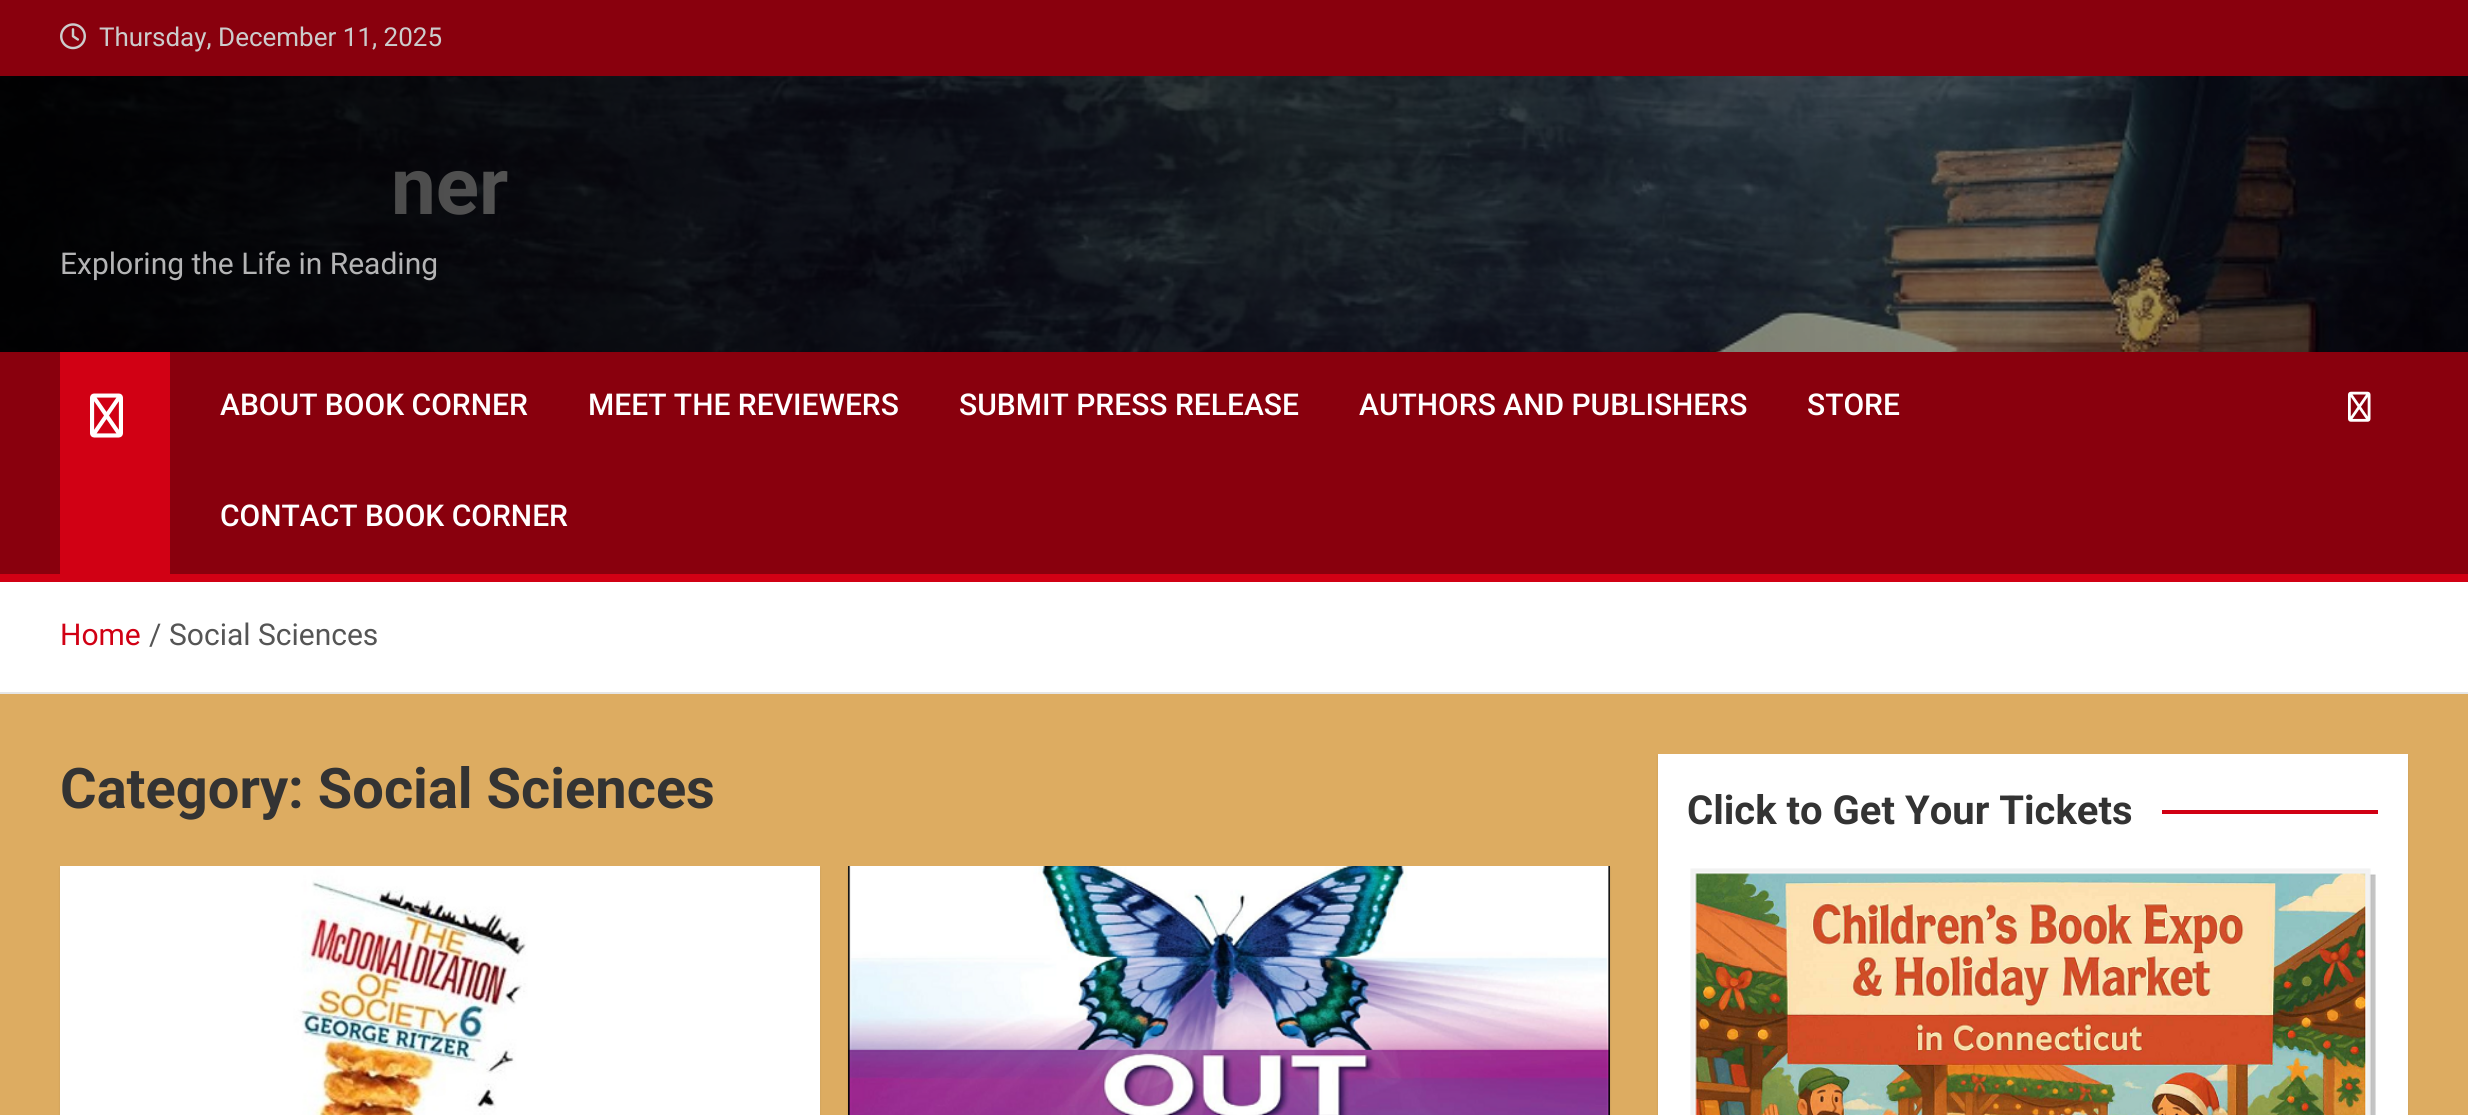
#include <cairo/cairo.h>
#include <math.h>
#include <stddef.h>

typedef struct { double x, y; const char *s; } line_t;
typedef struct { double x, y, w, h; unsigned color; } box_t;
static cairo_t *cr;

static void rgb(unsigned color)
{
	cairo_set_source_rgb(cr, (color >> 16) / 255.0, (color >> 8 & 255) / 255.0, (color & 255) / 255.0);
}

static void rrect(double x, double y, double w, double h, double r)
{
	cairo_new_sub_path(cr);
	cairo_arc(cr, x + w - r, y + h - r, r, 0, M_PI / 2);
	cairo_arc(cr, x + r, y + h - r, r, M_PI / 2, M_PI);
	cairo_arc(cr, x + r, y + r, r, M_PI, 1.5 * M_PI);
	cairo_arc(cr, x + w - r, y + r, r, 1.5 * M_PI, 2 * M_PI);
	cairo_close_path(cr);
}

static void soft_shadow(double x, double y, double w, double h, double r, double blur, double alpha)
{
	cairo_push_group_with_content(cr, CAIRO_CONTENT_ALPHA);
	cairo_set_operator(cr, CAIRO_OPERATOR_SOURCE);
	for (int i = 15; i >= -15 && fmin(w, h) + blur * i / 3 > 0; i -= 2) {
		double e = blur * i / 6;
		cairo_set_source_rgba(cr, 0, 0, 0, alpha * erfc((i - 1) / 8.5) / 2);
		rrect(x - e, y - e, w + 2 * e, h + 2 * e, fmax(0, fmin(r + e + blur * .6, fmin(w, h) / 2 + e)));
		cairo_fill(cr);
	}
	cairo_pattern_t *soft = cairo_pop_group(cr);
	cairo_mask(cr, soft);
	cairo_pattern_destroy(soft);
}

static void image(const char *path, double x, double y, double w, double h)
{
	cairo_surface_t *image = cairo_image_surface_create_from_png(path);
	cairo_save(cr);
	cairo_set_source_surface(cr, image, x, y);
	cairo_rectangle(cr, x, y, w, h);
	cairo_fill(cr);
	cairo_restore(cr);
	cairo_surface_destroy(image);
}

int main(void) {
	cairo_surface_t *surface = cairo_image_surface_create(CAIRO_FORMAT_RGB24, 2468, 1115);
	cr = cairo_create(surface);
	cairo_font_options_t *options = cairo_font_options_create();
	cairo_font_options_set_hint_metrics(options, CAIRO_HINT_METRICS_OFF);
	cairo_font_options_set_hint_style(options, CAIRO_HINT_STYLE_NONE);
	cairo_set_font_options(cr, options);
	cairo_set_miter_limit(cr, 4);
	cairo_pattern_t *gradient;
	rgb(0xddac61);
	cairo_paint(cr);
	rgb(0x89000d);
	cairo_rectangle(cr, 0, 0, 2468, 76);
	cairo_fill(cr);
	image("img/1.png", 60, 23, 26, 27);
	image("img/2.png", 0, 76, 2468, 276);
	{
		static const box_t items[] = {
			{0, 352, 2468, 222, 0x89000d},
			{0, 574, 2468, 8, 0xd10014},
			{60, 352, 110, 222, 0xd10014},
		};
		for (size_t i = 0; i < sizeof items / sizeof *items; i++) {
			rgb(items[i].color);
			cairo_rectangle(cr, items[i].x, items[i].y, items[i].w, items[i].h);
			cairo_fill(cr);
		}
	}
	image("img/3.png", 90, 393, 33, 45);
	image("img/4.png", 2348, 391, 23, 31);
	rgb(0xffffff);
	cairo_rectangle(cr, 0, 582, 2468, 110);
	cairo_fill(cr);
	rgb(0xe6e6e6);
	cairo_rectangle(cr, 0, 692, 2468, 2);
	cairo_fill(cr);
	rgb(0x000000);
	soft_shadow(60, 868, 760, 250, 0, 1, 0.1);
	image("img/5.png", 60, 866, 760, 249);
	soft_shadow(848, 868, 762, 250, 0, 1, 0.1);
	image("img/6.png", 848, 866, 762, 249);
	soft_shadow(1658, 756, 750, 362, 0, 1, 0.1);
	rgb(0xffffff);
	cairo_rectangle(cr, 1658, 754, 750, 361);
	cairo_fill(cr);
	rgb(0xd10014);
	cairo_rectangle(cr, 2162, 810, 216, 4);
	cairo_fill(cr);
	image("img/7.png", 1690, 868, 686, 247);
	cairo_select_font_face(cr, "Roboto", CAIRO_FONT_SLANT_NORMAL, CAIRO_FONT_WEIGHT_NORMAL);
	cairo_set_font_size(cr, 26);
	rgb(0xcccccc);
	cairo_move_to(cr, 99, 46);
	cairo_show_text(cr, "Thursday, December 11, 2025");
	cairo_select_font_face(cr, "Roboto", CAIRO_FONT_SLANT_NORMAL, CAIRO_FONT_WEIGHT_BOLD);
	cairo_set_font_size(cr, 80);
	rgb(0xffffff);
	cairo_move_to(cr, 391, 214);
	cairo_show_text(cr, "ner");
	gradient = cairo_pattern_create_linear(0, 214, 2468, 214);
	cairo_pattern_add_color_stop_rgba(gradient, 0, 0, 0, 0, 0.8);
	cairo_pattern_add_color_stop_rgba(gradient, 1, 0, 0, 0, 0.2);
	cairo_set_source(cr, gradient);
	cairo_pattern_destroy(gradient);
	cairo_rectangle(cr, 0, 76, 2468, 276);
	cairo_fill(cr);
	cairo_select_font_face(cr, "Roboto", CAIRO_FONT_SLANT_NORMAL, CAIRO_FONT_WEIGHT_NORMAL);
	cairo_set_font_size(cr, 30);
	rgb(0xb4b4b5);
	cairo_move_to(cr, 60, 274);
	cairo_show_text(cr, "Exploring the Life in Reading");
	cairo_select_font_face(cr, "Roboto Medium", CAIRO_FONT_SLANT_NORMAL, CAIRO_FONT_WEIGHT_NORMAL);
	rgb(0xffffff);
	{
		static const line_t items[] = {
			{220, 415, "ABOUT BOOK CORNER"},
			{588, 415, "MEET THE REVIEWERS"},
			{959, 415, "SUBMIT PRESS RELEASE"},
			{1359, 415, "AUTHORS AND PUBLISHERS"},
			{1807, 415, "STORE"},
			{220, 526, "CONTACT BOOK CORNER"},
		};
		for (size_t i = 0; i < sizeof items / sizeof *items; i++) {
			cairo_move_to(cr, items[i].x, items[i].y);
			cairo_show_text(cr, items[i].s);
		}
	}
	cairo_select_font_face(cr, "Roboto", CAIRO_FONT_SLANT_NORMAL, CAIRO_FONT_WEIGHT_NORMAL);
	rgb(0xd10014);
	cairo_move_to(cr, 60, 645);
	cairo_show_text(cr, "Home");
	rgb(0x555555);
	cairo_move_to(cr, 149, 645);
	cairo_show_text(cr, "/");
	cairo_move_to(cr, 169, 645);
	cairo_show_text(cr, "Social Sciences");
	cairo_select_font_face(cr, "Roboto", CAIRO_FONT_SLANT_NORMAL, CAIRO_FONT_WEIGHT_BOLD);
	cairo_set_font_size(cr, 56);
	rgb(0x333333);
	cairo_move_to(cr, 60, 808);
	cairo_show_text(cr, "Category: Social Sciences");
	cairo_set_font_size(cr, 40);
	cairo_move_to(cr, 1687, 824);
	cairo_show_text(cr, "Click to Get Your Tickets");
	cairo_surface_write_to_png(surface, "page.png");
	cairo_font_options_destroy(options);
	cairo_destroy(cr);
	cairo_surface_destroy(surface);
	return 0;
}
